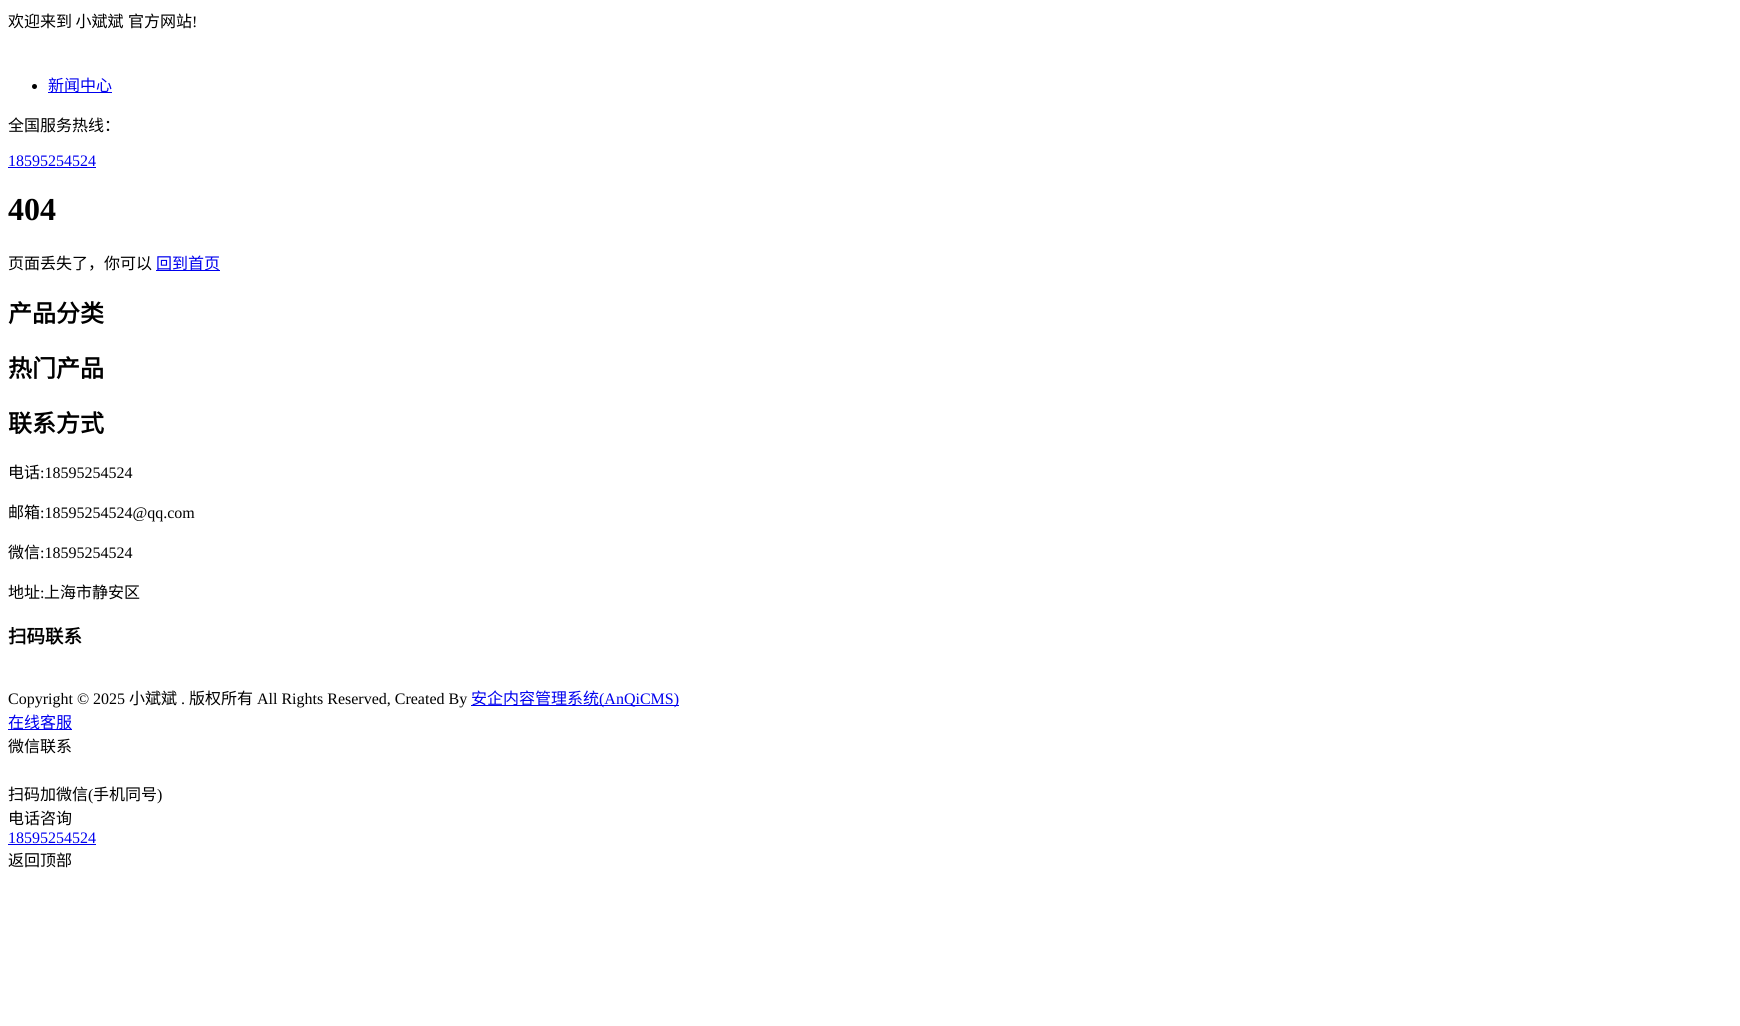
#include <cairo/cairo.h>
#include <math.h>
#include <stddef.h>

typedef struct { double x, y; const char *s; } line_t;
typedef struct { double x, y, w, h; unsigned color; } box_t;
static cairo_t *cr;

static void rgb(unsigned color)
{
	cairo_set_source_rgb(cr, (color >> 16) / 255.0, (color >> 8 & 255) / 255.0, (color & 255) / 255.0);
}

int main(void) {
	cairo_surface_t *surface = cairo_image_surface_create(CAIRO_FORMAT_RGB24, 1740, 1026);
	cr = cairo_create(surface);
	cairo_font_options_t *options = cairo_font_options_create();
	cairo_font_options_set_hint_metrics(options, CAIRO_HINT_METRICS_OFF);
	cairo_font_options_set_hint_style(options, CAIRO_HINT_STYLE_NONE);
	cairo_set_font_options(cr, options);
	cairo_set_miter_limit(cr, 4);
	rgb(0xffffff);
	cairo_paint(cr);
	rgb(0x000000);
	cairo_arc(cr, 34.5, 86.5, 2.5, 0, 2 * M_PI);
	cairo_fill(cr);
	{
		static const box_t items[] = {
			{48, 92, 64, 1, 0x0000ee},
			{8, 167, 88, 1, 0x0000ee},
			{156, 270, 64, 1, 0x0000ee},
			{471, 705, 208, 1, 0x0000ee},
			{8, 729, 64, 1, 0x0000ee},
			{8, 844, 88, 1, 0x0000ee},
		};
		for (size_t i = 0; i < sizeof items / sizeof *items; i++) {
			rgb(items[i].color);
			cairo_rectangle(cr, items[i].x, items[i].y, items[i].w, items[i].h);
			cairo_fill(cr);
		}
	}
	cairo_select_font_face(cr, "Noto Sans CJK SC", CAIRO_FONT_SLANT_NORMAL, CAIRO_FONT_WEIGHT_NORMAL);
	cairo_set_font_size(cr, 16);
	rgb(0x000000);
	cairo_move_to(cr, 8, 27);
	cairo_show_text(cr, "欢迎来到 小斌斌");
	cairo_move_to(cr, 128, 27);
	cairo_show_text(cr, "官方网站");
	cairo_select_font_face(cr, "Liberation Serif", CAIRO_FONT_SLANT_NORMAL, CAIRO_FONT_WEIGHT_NORMAL);
	cairo_move_to(cr, 192, 27);
	cairo_show_text(cr, "!");
	cairo_select_font_face(cr, "Noto Sans CJK SC", CAIRO_FONT_SLANT_NORMAL, CAIRO_FONT_WEIGHT_NORMAL);
	rgb(0x0000ee);
	cairo_move_to(cr, 48, 91);
	cairo_show_text(cr, "新闻中心");
	rgb(0x000000);
	cairo_move_to(cr, 8, 131);
	cairo_show_text(cr, "全国服务热线：");
	cairo_select_font_face(cr, "Liberation Serif", CAIRO_FONT_SLANT_NORMAL, CAIRO_FONT_WEIGHT_NORMAL);
	rgb(0x0000ee);
	cairo_move_to(cr, 8, 166);
	cairo_show_text(cr, "18595254524");
	cairo_select_font_face(cr, "Liberation Serif", CAIRO_FONT_SLANT_NORMAL, CAIRO_FONT_WEIGHT_BOLD);
	cairo_set_font_size(cr, 32);
	rgb(0x000000);
	cairo_move_to(cr, 8, 220);
	cairo_show_text(cr, "404");
	cairo_select_font_face(cr, "Noto Sans CJK SC", CAIRO_FONT_SLANT_NORMAL, CAIRO_FONT_WEIGHT_NORMAL);
	cairo_set_font_size(cr, 16);
	cairo_move_to(cr, 8, 269);
	cairo_show_text(cr, "页面丢失了，你可以");
	rgb(0x0000ee);
	cairo_move_to(cr, 156, 269);
	cairo_show_text(cr, "回到首页");
	cairo_select_font_face(cr, "Noto Sans CJK SC", CAIRO_FONT_SLANT_NORMAL, CAIRO_FONT_WEIGHT_BOLD);
	cairo_set_font_size(cr, 24);
	rgb(0x000000);
	{
		static const line_t items[] = {
			{8, 322, "产品分类"},
			{8, 377, "热门产品"},
			{8, 432, "联系方式"},
		};
		for (size_t i = 0; i < sizeof items / sizeof *items; i++) {
			cairo_move_to(cr, items[i].x, items[i].y);
			cairo_show_text(cr, items[i].s);
		}
	}
	cairo_select_font_face(cr, "Noto Sans CJK SC", CAIRO_FONT_SLANT_NORMAL, CAIRO_FONT_WEIGHT_NORMAL);
	cairo_set_font_size(cr, 16);
	cairo_move_to(cr, 8, 478);
	cairo_show_text(cr, "电话");
	cairo_select_font_face(cr, "Liberation Serif", CAIRO_FONT_SLANT_NORMAL, CAIRO_FONT_WEIGHT_NORMAL);
	cairo_move_to(cr, 40, 478);
	cairo_show_text(cr, ":18595254524");
	cairo_select_font_face(cr, "Noto Sans CJK SC", CAIRO_FONT_SLANT_NORMAL, CAIRO_FONT_WEIGHT_NORMAL);
	cairo_move_to(cr, 8, 518);
	cairo_show_text(cr, "邮箱");
	cairo_select_font_face(cr, "Liberation Serif", CAIRO_FONT_SLANT_NORMAL, CAIRO_FONT_WEIGHT_NORMAL);
	cairo_move_to(cr, 40, 518);
	cairo_show_text(cr, ":18595254524@qq.com");
	cairo_select_font_face(cr, "Noto Sans CJK SC", CAIRO_FONT_SLANT_NORMAL, CAIRO_FONT_WEIGHT_NORMAL);
	cairo_move_to(cr, 8, 558);
	cairo_show_text(cr, "微信");
	cairo_select_font_face(cr, "Liberation Serif", CAIRO_FONT_SLANT_NORMAL, CAIRO_FONT_WEIGHT_NORMAL);
	cairo_move_to(cr, 40, 558);
	cairo_show_text(cr, ":18595254524");
	cairo_select_font_face(cr, "Noto Sans CJK SC", CAIRO_FONT_SLANT_NORMAL, CAIRO_FONT_WEIGHT_NORMAL);
	cairo_move_to(cr, 8, 598);
	cairo_show_text(cr, "地址");
	cairo_select_font_face(cr, "Liberation Serif", CAIRO_FONT_SLANT_NORMAL, CAIRO_FONT_WEIGHT_NORMAL);
	cairo_move_to(cr, 40, 598);
	cairo_show_text(cr, ":");
	cairo_select_font_face(cr, "Noto Sans CJK SC", CAIRO_FONT_SLANT_NORMAL, CAIRO_FONT_WEIGHT_NORMAL);
	cairo_move_to(cr, 44, 598);
	cairo_show_text(cr, "上海市静安区");
	cairo_select_font_face(cr, "Noto Sans CJK SC", CAIRO_FONT_SLANT_NORMAL, CAIRO_FONT_WEIGHT_BOLD);
	cairo_set_font_size(cr, 18.5);
	cairo_move_to(cr, 8, 643);
	cairo_show_text(cr, "扫码联系");
	cairo_select_font_face(cr, "Liberation Serif", CAIRO_FONT_SLANT_NORMAL, CAIRO_FONT_WEIGHT_NORMAL);
	cairo_set_font_size(cr, 16);
	cairo_move_to(cr, 8, 704);
	cairo_show_text(cr, "Copyright © 2025");
	cairo_select_font_face(cr, "Noto Sans CJK SC", CAIRO_FONT_SLANT_NORMAL, CAIRO_FONT_WEIGHT_NORMAL);
	cairo_move_to(cr, 129, 704);
	cairo_show_text(cr, "小斌斌");
	cairo_select_font_face(cr, "Liberation Serif", CAIRO_FONT_SLANT_NORMAL, CAIRO_FONT_WEIGHT_NORMAL);
	cairo_move_to(cr, 181, 704);
	cairo_show_text(cr, ".");
	cairo_select_font_face(cr, "Noto Sans CJK SC", CAIRO_FONT_SLANT_NORMAL, CAIRO_FONT_WEIGHT_NORMAL);
	cairo_move_to(cr, 189, 704);
	cairo_show_text(cr, "版权所有");
	cairo_select_font_face(cr, "Liberation Serif", CAIRO_FONT_SLANT_NORMAL, CAIRO_FONT_WEIGHT_NORMAL);
	cairo_move_to(cr, 257, 704);
	cairo_show_text(cr, "All Rights Reserved, Created By");
	cairo_select_font_face(cr, "Noto Sans CJK SC", CAIRO_FONT_SLANT_NORMAL, CAIRO_FONT_WEIGHT_NORMAL);
	rgb(0x0000ee);
	cairo_move_to(cr, 471, 704);
	cairo_show_text(cr, "安企内容管理系统");
	cairo_select_font_face(cr, "Liberation Serif", CAIRO_FONT_SLANT_NORMAL, CAIRO_FONT_WEIGHT_NORMAL);
	cairo_move_to(cr, 599, 704);
	cairo_show_text(cr, "(AnQiCMS)");
	cairo_select_font_face(cr, "Noto Sans CJK SC", CAIRO_FONT_SLANT_NORMAL, CAIRO_FONT_WEIGHT_NORMAL);
	cairo_move_to(cr, 8, 728);
	cairo_show_text(cr, "在线客服");
	rgb(0x000000);
	cairo_move_to(cr, 8, 752);
	cairo_show_text(cr, "微信联系");
	cairo_move_to(cr, 8, 800);
	cairo_show_text(cr, "扫码加微信");
	cairo_select_font_face(cr, "Liberation Serif", CAIRO_FONT_SLANT_NORMAL, CAIRO_FONT_WEIGHT_NORMAL);
	cairo_move_to(cr, 88, 800);
	cairo_show_text(cr, "(");
	cairo_select_font_face(cr, "Noto Sans CJK SC", CAIRO_FONT_SLANT_NORMAL, CAIRO_FONT_WEIGHT_NORMAL);
	cairo_move_to(cr, 93, 800);
	cairo_show_text(cr, "手机同号");
	cairo_select_font_face(cr, "Liberation Serif", CAIRO_FONT_SLANT_NORMAL, CAIRO_FONT_WEIGHT_NORMAL);
	cairo_move_to(cr, 157, 800);
	cairo_show_text(cr, ")");
	cairo_select_font_face(cr, "Noto Sans CJK SC", CAIRO_FONT_SLANT_NORMAL, CAIRO_FONT_WEIGHT_NORMAL);
	cairo_move_to(cr, 8, 824);
	cairo_show_text(cr, "电话咨询");
	cairo_select_font_face(cr, "Liberation Serif", CAIRO_FONT_SLANT_NORMAL, CAIRO_FONT_WEIGHT_NORMAL);
	rgb(0x0000ee);
	cairo_move_to(cr, 8, 843);
	cairo_show_text(cr, "18595254524");
	cairo_select_font_face(cr, "Noto Sans CJK SC", CAIRO_FONT_SLANT_NORMAL, CAIRO_FONT_WEIGHT_NORMAL);
	rgb(0x000000);
	cairo_move_to(cr, 8, 866);
	cairo_show_text(cr, "返回顶部");
	cairo_surface_write_to_png(surface, "page.png");
	cairo_font_options_destroy(options);
	cairo_destroy(cr);
	cairo_surface_destroy(surface);
	return 0;
}
